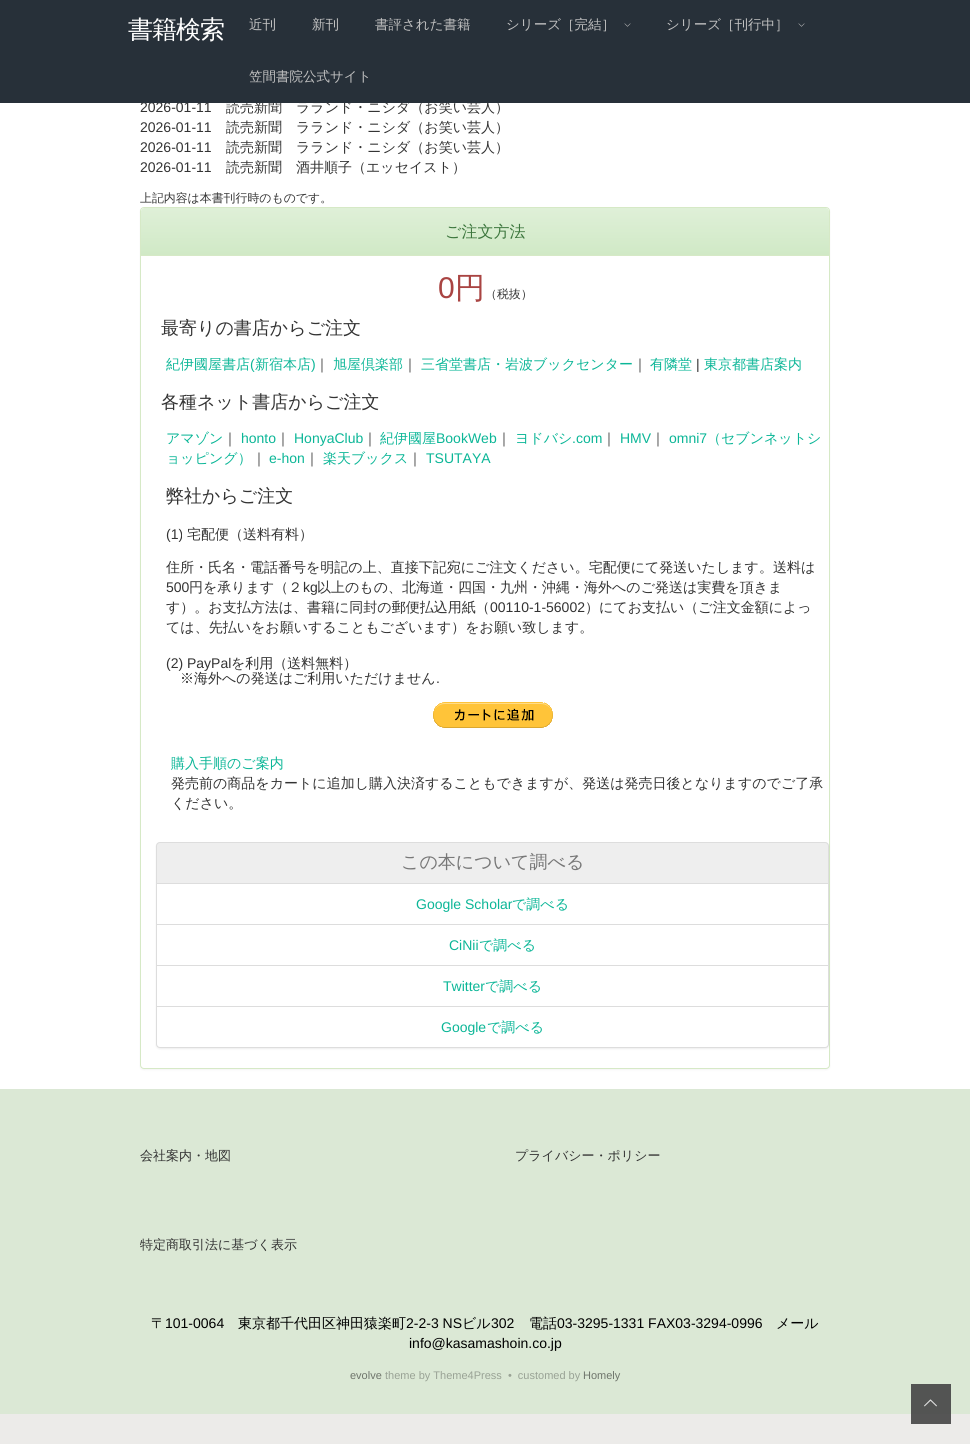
#include <cairo/cairo.h>
#include <math.h>
#include <stddef.h>

typedef struct { double x, y; const char *s; } line_t;
static cairo_t *cr;

static void rgb(unsigned color)
{
	cairo_set_source_rgb(cr, (color >> 16) / 255.0, (color >> 8 & 255) / 255.0, (color & 255) / 255.0);
}

static void tracked(double x, double y, const char *s, double letter, double word)
{
	cairo_move_to(cr, x, y);
	while (*s) {
		char ch[5] = {0};
		int n = 0;
		do ch[n++] = *s++; while ((*s & 0xC0) == 0x80);
		cairo_show_text(cr, ch);
		cairo_rel_move_to(cr, letter + word * (*ch == ' '), 0);
	}
}

static void rrect(double x, double y, double w, double h, double r)
{
	cairo_new_sub_path(cr);
	cairo_arc(cr, x + w - r, y + h - r, r, 0, M_PI / 2);
	cairo_arc(cr, x + r, y + h - r, r, M_PI / 2, M_PI);
	cairo_arc(cr, x + r, y + r, r, M_PI, 1.5 * M_PI);
	cairo_arc(cr, x + w - r, y + r, r, 1.5 * M_PI, 2 * M_PI);
	cairo_close_path(cr);
}

static void soft_shadow(double x, double y, double w, double h, double r, double blur, double alpha)
{
	cairo_push_group_with_content(cr, CAIRO_CONTENT_ALPHA);
	cairo_set_operator(cr, CAIRO_OPERATOR_SOURCE);
	for (int i = 15; i >= -15 && fmin(w, h) + blur * i / 3 > 0; i -= 2) {
		double e = blur * i / 6;
		cairo_set_source_rgba(cr, 0, 0, 0, alpha * erfc((i - 1) / 8.5) / 2);
		rrect(x - e, y - e, w + 2 * e, h + 2 * e, fmax(0, fmin(r + e + blur * .6, fmin(w, h) / 2 + e)));
		cairo_fill(cr);
	}
	cairo_pattern_t *soft = cairo_pop_group(cr);
	cairo_mask(cr, soft);
	cairo_pattern_destroy(soft);
}

static void image(const char *path, double x, double y, double w, double h)
{
	cairo_surface_t *image = cairo_image_surface_create_from_png(path);
	cairo_save(cr);
	cairo_set_source_surface(cr, image, x, y);
	cairo_rectangle(cr, x, y, w, h);
	cairo_fill(cr);
	cairo_restore(cr);
	cairo_surface_destroy(image);
}

int main(void) {
	cairo_surface_t *surface = cairo_image_surface_create(CAIRO_FORMAT_RGB24, 970, 1444);
	cr = cairo_create(surface);
	cairo_font_options_t *options = cairo_font_options_create();
	cairo_font_options_set_hint_metrics(options, CAIRO_HINT_METRICS_OFF);
	cairo_font_options_set_hint_style(options, CAIRO_HINT_STYLE_NONE);
	cairo_set_font_options(cr, options);
	cairo_set_miter_limit(cr, 4);
	cairo_pattern_t *gradient;
	rgb(0xecebe9);
	cairo_paint(cr);
	rgb(0x555555);
	cairo_rectangle(cr, 911, 1414, 40, 10);
	cairo_fill(cr);
	rgb(0xffffff);
	cairo_rectangle(cr, 0, 103, 970, 986);
	cairo_fill(cr);
	rgb(0x000000);
	soft_shadow(140, 208, 690, 862, 4, 1, 0.05);
	rgb(0xffffff);
	rrect(140.5, 207.5, 689, 861, 3.5);
	cairo_fill_preserve(cr);
	rgb(0xd6e9c6);
	cairo_set_line_width(cr, 1);
	cairo_stroke(cr);
	gradient = cairo_pattern_create_linear(485, 208, 485, 255);
	cairo_pattern_add_color_stop_rgba(gradient, 0, 0.875, 0.941, 0.847, 1);
	cairo_pattern_add_color_stop_rgba(gradient, 1, 0.816, 0.914, 0.776, 1);
	cairo_set_source(cr, gradient);
	cairo_pattern_destroy(gradient);
	cairo_new_path(cr);
	cairo_move_to(cr, 144, 208);
	cairo_line_to(cr, 826, 208);
	cairo_curve_to(cr, 827.5, 208, 829, 209.5, 829, 211);
	cairo_line_to(cr, 829, 255);
	cairo_line_to(cr, 141, 255);
	cairo_line_to(cr, 141, 211);
	cairo_curve_to(cr, 141, 209.5, 142.5, 208, 144, 208);
	cairo_close_path(cr);
	cairo_fill(cr);
	rgb(0xd6e9c6);
	cairo_rectangle(cr, 141, 255, 688, 1);
	cairo_fill(cr);
	image("img/2.png", 433, 702, 120, 26);
	rgb(0x000000);
	soft_shadow(156, 843, 673, 206, 4, 1, 0.07);
	rgb(0xeeeeee);
	cairo_new_path(cr);
	cairo_move_to(cr, 160, 842.5);
	cairo_line_to(cr, 825, 842.5);
	cairo_curve_to(cr, 827, 842.5, 828.5, 844, 828.5, 846);
	cairo_line_to(cr, 828.5, 883.5);
	cairo_line_to(cr, 156.5, 883.5);
	cairo_line_to(cr, 156.5, 846);
	cairo_curve_to(cr, 156.5, 844, 158, 842.5, 160, 842.5);
	cairo_close_path(cr);
	cairo_fill_preserve(cr);
	rgb(0xdddddd);
	cairo_stroke(cr);
	rgb(0xffffff);
	cairo_rectangle(cr, 156.5, 883.5, 672, 41);
	cairo_fill_preserve(cr);
	rgb(0xdddddd);
	cairo_stroke(cr);
	rgb(0xffffff);
	cairo_rectangle(cr, 156.5, 924.5, 672, 41);
	cairo_fill_preserve(cr);
	rgb(0xdddddd);
	cairo_stroke(cr);
	rgb(0xffffff);
	cairo_rectangle(cr, 156.5, 965.5, 672, 41);
	cairo_fill_preserve(cr);
	rgb(0xdddddd);
	cairo_stroke(cr);
	rgb(0xffffff);
	cairo_new_path(cr);
	cairo_move_to(cr, 156.5, 1006.5);
	cairo_line_to(cr, 828.5, 1006.5);
	cairo_line_to(cr, 828.5, 1044);
	cairo_curve_to(cr, 828.5, 1046, 827, 1047.5, 825, 1047.5);
	cairo_line_to(cr, 160, 1047.5);
	cairo_curve_to(cr, 158, 1047.5, 156.5, 1046, 156.5, 1044);
	cairo_close_path(cr);
	cairo_fill_preserve(cr);
	rgb(0xdddddd);
	cairo_stroke(cr);
	rgb(0xdbe8d5);
	cairo_rectangle(cr, 0, 1089, 970, 325);
	cairo_fill(cr);
	rgb(0x535453);
	cairo_rectangle(cr, 911, 1384, 40, 30);
	cairo_fill(cr);
	image("img/3.png", 924, 1399, 13, 8);
	cairo_select_font_face(cr, "Liberation Sans", CAIRO_FONT_SLANT_NORMAL, CAIRO_FONT_WEIGHT_NORMAL);
	cairo_set_font_size(cr, 14);
	rgb(0x333333);
	cairo_move_to(cr, 140, 112);
	cairo_show_text(cr, "2026-01-11");
	cairo_select_font_face(cr, "WenQuanYi Zen Hei Medium", CAIRO_FONT_SLANT_NORMAL, CAIRO_FONT_WEIGHT_NORMAL);
	cairo_move_to(cr, 226, 112);
	cairo_show_text(cr, "読売新聞　ラランド・ニシダ（お笑い芸人）");
	rgb(0x273039);
	cairo_rectangle(cr, 0, 0, 970, 103);
	cairo_fill(cr);
	cairo_set_font_size(cr, 13.5);
	rgb(0xc1c1c1);
	cairo_move_to(cr, 249, 81);
	cairo_show_text(cr, "笠間書院公式サイト");
	image("img/1.png", 798, 23, 7, 4);
	cairo_move_to(cr, 666, 29);
	cairo_show_text(cr, "シリーズ［刊行中］");
	image("img/1.png", 624, 23, 7, 4);
	{
		static const line_t items[] = {
			{506, 29, "シリーズ［完結］"},
			{375, 29, "書評された書籍"},
			{312, 29, "新刊"},
			{249, 29, "近刊"},
		};
		for (size_t i = 0; i < sizeof items / sizeof *items; i++) {
			cairo_move_to(cr, items[i].x, items[i].y);
			cairo_show_text(cr, items[i].s);
		}
	}
	cairo_set_font_size(cr, 25);
	rgb(0xffffff);
	tracked(128, 38, "書籍検索", -1, 0);
	cairo_select_font_face(cr, "Liberation Sans", CAIRO_FONT_SLANT_NORMAL, CAIRO_FONT_WEIGHT_NORMAL);
	cairo_set_font_size(cr, 14);
	rgb(0x333333);
	cairo_move_to(cr, 140, 132);
	cairo_show_text(cr, "2026-01-11");
	cairo_select_font_face(cr, "WenQuanYi Zen Hei Medium", CAIRO_FONT_SLANT_NORMAL, CAIRO_FONT_WEIGHT_NORMAL);
	cairo_move_to(cr, 226, 132);
	cairo_show_text(cr, "読売新聞　ラランド・ニシダ（お笑い芸人）");
	cairo_select_font_face(cr, "Liberation Sans", CAIRO_FONT_SLANT_NORMAL, CAIRO_FONT_WEIGHT_NORMAL);
	cairo_move_to(cr, 140, 152);
	cairo_show_text(cr, "2026-01-11");
	cairo_select_font_face(cr, "WenQuanYi Zen Hei Medium", CAIRO_FONT_SLANT_NORMAL, CAIRO_FONT_WEIGHT_NORMAL);
	cairo_move_to(cr, 226, 152);
	cairo_show_text(cr, "読売新聞　ラランド・ニシダ（お笑い芸人）");
	cairo_select_font_face(cr, "Liberation Sans", CAIRO_FONT_SLANT_NORMAL, CAIRO_FONT_WEIGHT_NORMAL);
	cairo_move_to(cr, 140, 172);
	cairo_show_text(cr, "2026-01-11");
	cairo_select_font_face(cr, "WenQuanYi Zen Hei Medium", CAIRO_FONT_SLANT_NORMAL, CAIRO_FONT_WEIGHT_NORMAL);
	cairo_move_to(cr, 226, 172);
	cairo_show_text(cr, "読売新聞　酒井順子（エッセイスト）");
	cairo_set_font_size(cr, 11.9);
	cairo_move_to(cr, 140, 202);
	cairo_show_text(cr, "上記内容は本書刊行時のものです。");
	cairo_set_font_size(cr, 16);
	rgb(0x3c763d);
	cairo_move_to(cr, 445, 237);
	cairo_show_text(cr, "ご注文方法");
	cairo_select_font_face(cr, "Liberation Sans", CAIRO_FONT_SLANT_NORMAL, CAIRO_FONT_WEIGHT_NORMAL);
	cairo_set_font_size(cr, 30);
	rgb(0xa94442);
	cairo_move_to(cr, 438, 298);
	cairo_show_text(cr, "0");
	cairo_select_font_face(cr, "WenQuanYi Zen Hei Medium", CAIRO_FONT_SLANT_NORMAL, CAIRO_FONT_WEIGHT_NORMAL);
	cairo_move_to(cr, 455, 298);
	cairo_show_text(cr, "円");
	cairo_set_font_size(cr, 11.9);
	rgb(0x333333);
	cairo_move_to(cr, 485, 298);
	cairo_show_text(cr, "（税抜）");
	cairo_set_font_size(cr, 18);
	cairo_move_to(cr, 161, 334);
	cairo_show_text(cr, "最寄りの書店からご注文");
	cairo_set_font_size(cr, 14);
	rgb(0x0bb697);
	cairo_move_to(cr, 166, 369);
	cairo_show_text(cr, "紀伊國屋書店");
	cairo_select_font_face(cr, "Liberation Sans", CAIRO_FONT_SLANT_NORMAL, CAIRO_FONT_WEIGHT_NORMAL);
	cairo_move_to(cr, 250, 369);
	cairo_show_text(cr, "(");
	cairo_select_font_face(cr, "WenQuanYi Zen Hei Medium", CAIRO_FONT_SLANT_NORMAL, CAIRO_FONT_WEIGHT_NORMAL);
	cairo_move_to(cr, 255, 369);
	cairo_show_text(cr, "新宿本店");
	cairo_select_font_face(cr, "Liberation Sans", CAIRO_FONT_SLANT_NORMAL, CAIRO_FONT_WEIGHT_NORMAL);
	cairo_move_to(cr, 311, 369);
	cairo_show_text(cr, ")");
	cairo_select_font_face(cr, "WenQuanYi Zen Hei Medium", CAIRO_FONT_SLANT_NORMAL, CAIRO_FONT_WEIGHT_NORMAL);
	rgb(0x333333);
	cairo_move_to(cr, 315, 369);
	cairo_show_text(cr, "｜");
	rgb(0x0bb697);
	cairo_move_to(cr, 333, 369);
	cairo_show_text(cr, "旭屋倶楽部");
	rgb(0x333333);
	cairo_move_to(cr, 403, 369);
	cairo_show_text(cr, "｜");
	rgb(0x0bb697);
	cairo_move_to(cr, 421, 369);
	cairo_show_text(cr, "三省堂書店・岩波ブックセンター");
	rgb(0x333333);
	cairo_move_to(cr, 633, 369);
	cairo_show_text(cr, "｜");
	rgb(0x0bb697);
	cairo_move_to(cr, 650, 369);
	cairo_show_text(cr, "有隣堂");
	cairo_select_font_face(cr, "Liberation Sans", CAIRO_FONT_SLANT_NORMAL, CAIRO_FONT_WEIGHT_NORMAL);
	rgb(0x333333);
	cairo_move_to(cr, 696, 369);
	cairo_show_text(cr, "|");
	cairo_select_font_face(cr, "WenQuanYi Zen Hei Medium", CAIRO_FONT_SLANT_NORMAL, CAIRO_FONT_WEIGHT_NORMAL);
	rgb(0x0bb697);
	cairo_move_to(cr, 704, 369);
	cairo_show_text(cr, "東京都書店案内");
	cairo_set_font_size(cr, 18);
	rgb(0x333333);
	cairo_move_to(cr, 161, 408);
	cairo_show_text(cr, "各種ネット書店からご注文");
	cairo_set_font_size(cr, 14);
	rgb(0x0bb697);
	cairo_move_to(cr, 166, 443);
	cairo_show_text(cr, "アマゾン");
	rgb(0x333333);
	cairo_move_to(cr, 223, 443);
	cairo_show_text(cr, "｜");
	cairo_select_font_face(cr, "Liberation Sans", CAIRO_FONT_SLANT_NORMAL, CAIRO_FONT_WEIGHT_NORMAL);
	rgb(0x0bb697);
	cairo_move_to(cr, 241, 443);
	cairo_show_text(cr, "honto");
	cairo_select_font_face(cr, "WenQuanYi Zen Hei Medium", CAIRO_FONT_SLANT_NORMAL, CAIRO_FONT_WEIGHT_NORMAL);
	rgb(0x333333);
	cairo_move_to(cr, 276, 443);
	cairo_show_text(cr, "｜");
	cairo_select_font_face(cr, "Liberation Sans", CAIRO_FONT_SLANT_NORMAL, CAIRO_FONT_WEIGHT_NORMAL);
	rgb(0x0bb697);
	cairo_move_to(cr, 294, 443);
	cairo_show_text(cr, "HonyaClub");
	cairo_select_font_face(cr, "WenQuanYi Zen Hei Medium", CAIRO_FONT_SLANT_NORMAL, CAIRO_FONT_WEIGHT_NORMAL);
	rgb(0x333333);
	cairo_move_to(cr, 363, 443);
	cairo_show_text(cr, "｜");
	rgb(0x0bb697);
	cairo_move_to(cr, 380, 443);
	cairo_show_text(cr, "紀伊國屋");
	cairo_select_font_face(cr, "Liberation Sans", CAIRO_FONT_SLANT_NORMAL, CAIRO_FONT_WEIGHT_NORMAL);
	cairo_move_to(cr, 436, 443);
	cairo_show_text(cr, "BookWeb");
	cairo_select_font_face(cr, "WenQuanYi Zen Hei Medium", CAIRO_FONT_SLANT_NORMAL, CAIRO_FONT_WEIGHT_NORMAL);
	rgb(0x333333);
	cairo_move_to(cr, 497, 443);
	cairo_show_text(cr, "｜");
	rgb(0x0bb697);
	cairo_move_to(cr, 515, 443);
	cairo_show_text(cr, "ヨドバシ");
	cairo_select_font_face(cr, "Liberation Sans", CAIRO_FONT_SLANT_NORMAL, CAIRO_FONT_WEIGHT_NORMAL);
	cairo_move_to(cr, 572, 443);
	cairo_show_text(cr, ".com");
	cairo_select_font_face(cr, "WenQuanYi Zen Hei Medium", CAIRO_FONT_SLANT_NORMAL, CAIRO_FONT_WEIGHT_NORMAL);
	rgb(0x333333);
	cairo_move_to(cr, 602, 443);
	cairo_show_text(cr, "｜");
	cairo_select_font_face(cr, "Liberation Sans", CAIRO_FONT_SLANT_NORMAL, CAIRO_FONT_WEIGHT_NORMAL);
	rgb(0x0bb697);
	cairo_move_to(cr, 620, 443);
	cairo_show_text(cr, "HMV");
	cairo_select_font_face(cr, "WenQuanYi Zen Hei Medium", CAIRO_FONT_SLANT_NORMAL, CAIRO_FONT_WEIGHT_NORMAL);
	rgb(0x333333);
	cairo_move_to(cr, 651, 443);
	cairo_show_text(cr, "｜");
	cairo_select_font_face(cr, "Liberation Sans", CAIRO_FONT_SLANT_NORMAL, CAIRO_FONT_WEIGHT_NORMAL);
	rgb(0x0bb697);
	cairo_move_to(cr, 669, 443);
	cairo_show_text(cr, "omni7");
	cairo_select_font_face(cr, "WenQuanYi Zen Hei Medium", CAIRO_FONT_SLANT_NORMAL, CAIRO_FONT_WEIGHT_NORMAL);
	cairo_move_to(cr, 707, 443);
	cairo_show_text(cr, "（セブンネットシ");
	cairo_move_to(cr, 166, 463);
	cairo_show_text(cr, "ョッピング）");
	rgb(0x333333);
	cairo_move_to(cr, 252, 463);
	cairo_show_text(cr, "｜");
	cairo_select_font_face(cr, "Liberation Sans", CAIRO_FONT_SLANT_NORMAL, CAIRO_FONT_WEIGHT_NORMAL);
	rgb(0x0bb697);
	cairo_move_to(cr, 269, 463);
	cairo_show_text(cr, "e-hon");
	cairo_select_font_face(cr, "WenQuanYi Zen Hei Medium", CAIRO_FONT_SLANT_NORMAL, CAIRO_FONT_WEIGHT_NORMAL);
	rgb(0x333333);
	cairo_move_to(cr, 305, 463);
	cairo_show_text(cr, "｜");
	rgb(0x0bb697);
	cairo_move_to(cr, 323, 463);
	cairo_show_text(cr, "楽天ブックス");
	rgb(0x333333);
	cairo_move_to(cr, 408, 463);
	cairo_show_text(cr, "｜");
	cairo_select_font_face(cr, "Liberation Sans", CAIRO_FONT_SLANT_NORMAL, CAIRO_FONT_WEIGHT_NORMAL);
	rgb(0x0bb697);
	cairo_move_to(cr, 426, 463);
	cairo_show_text(cr, "TSUTAYA");
	cairo_select_font_face(cr, "WenQuanYi Zen Hei Medium", CAIRO_FONT_SLANT_NORMAL, CAIRO_FONT_WEIGHT_NORMAL);
	cairo_set_font_size(cr, 18);
	rgb(0x333333);
	cairo_move_to(cr, 166, 502);
	cairo_show_text(cr, "弊社からご注文");
	cairo_select_font_face(cr, "Liberation Sans", CAIRO_FONT_SLANT_NORMAL, CAIRO_FONT_WEIGHT_NORMAL);
	cairo_set_font_size(cr, 14);
	cairo_move_to(cr, 166, 539);
	cairo_show_text(cr, "(1)");
	cairo_select_font_face(cr, "WenQuanYi Zen Hei Medium", CAIRO_FONT_SLANT_NORMAL, CAIRO_FONT_WEIGHT_NORMAL);
	cairo_move_to(cr, 187, 539);
	cairo_show_text(cr, "宅配便（送料有料）");
	cairo_move_to(cr, 166, 572);
	cairo_show_text(cr, "住所・氏名・電話番号を明記の上、直接下記宛にご注文ください。宅配便にて発送いたします。送料は");
	cairo_select_font_face(cr, "Liberation Sans", CAIRO_FONT_SLANT_NORMAL, CAIRO_FONT_WEIGHT_NORMAL);
	cairo_move_to(cr, 166, 592);
	cairo_show_text(cr, "500");
	cairo_select_font_face(cr, "WenQuanYi Zen Hei Medium", CAIRO_FONT_SLANT_NORMAL, CAIRO_FONT_WEIGHT_NORMAL);
	cairo_move_to(cr, 189, 592);
	cairo_show_text(cr, "円を承ります（２");
	cairo_select_font_face(cr, "Liberation Sans", CAIRO_FONT_SLANT_NORMAL, CAIRO_FONT_WEIGHT_NORMAL);
	cairo_move_to(cr, 303, 592);
	cairo_show_text(cr, "kg");
	cairo_select_font_face(cr, "WenQuanYi Zen Hei Medium", CAIRO_FONT_SLANT_NORMAL, CAIRO_FONT_WEIGHT_NORMAL);
	cairo_move_to(cr, 317, 592);
	cairo_show_text(cr, "以上のもの、北海道・四国・九州・沖縄・海外へのご発送は実費を頂きま");
	cairo_move_to(cr, 166, 612);
	cairo_show_text(cr, "す）。お支払方法は、書籍に同封の郵便払込用紙（");
	cairo_select_font_face(cr, "Liberation Sans", CAIRO_FONT_SLANT_NORMAL, CAIRO_FONT_WEIGHT_NORMAL);
	cairo_move_to(cr, 490, 612);
	cairo_show_text(cr, "00110-1-56002");
	cairo_select_font_face(cr, "WenQuanYi Zen Hei Medium", CAIRO_FONT_SLANT_NORMAL, CAIRO_FONT_WEIGHT_NORMAL);
	cairo_move_to(cr, 585, 612);
	cairo_show_text(cr, "）にてお支払い（ご注文金額によっ");
	cairo_move_to(cr, 166, 632);
	cairo_show_text(cr, "ては、先払いをお願いすることもございます）をお願い致します。");
	cairo_select_font_face(cr, "Liberation Sans", CAIRO_FONT_SLANT_NORMAL, CAIRO_FONT_WEIGHT_NORMAL);
	cairo_move_to(cr, 166, 668);
	cairo_show_text(cr, "(2) PayPal");
	cairo_select_font_face(cr, "WenQuanYi Zen Hei Medium", CAIRO_FONT_SLANT_NORMAL, CAIRO_FONT_WEIGHT_NORMAL);
	cairo_move_to(cr, 231, 668);
	cairo_show_text(cr, "を利用（送料無料）");
	cairo_move_to(cr, 180, 683);
	cairo_show_text(cr, "※海外への発送はご利用いただけません");
	cairo_select_font_face(cr, "Liberation Sans", CAIRO_FONT_SLANT_NORMAL, CAIRO_FONT_WEIGHT_NORMAL);
	cairo_move_to(cr, 436, 683);
	cairo_show_text(cr, ".");
	cairo_select_font_face(cr, "WenQuanYi Zen Hei Medium", CAIRO_FONT_SLANT_NORMAL, CAIRO_FONT_WEIGHT_NORMAL);
	rgb(0x0bb697);
	cairo_move_to(cr, 171, 768);
	cairo_show_text(cr, "購入手順のご案内");
	rgb(0x333333);
	cairo_move_to(cr, 171, 788);
	cairo_show_text(cr, "発売前の商品をカートに追加し購入決済することもできますが、発送は発売日後となりますのでご了承");
	cairo_move_to(cr, 171, 808);
	cairo_show_text(cr, "ください。");
	cairo_set_font_size(cr, 18);
	rgb(0x777777);
	cairo_move_to(cr, 401, 868);
	cairo_show_text(cr, "この本について調べる");
	cairo_select_font_face(cr, "Liberation Sans", CAIRO_FONT_SLANT_NORMAL, CAIRO_FONT_WEIGHT_NORMAL);
	cairo_set_font_size(cr, 14);
	rgb(0x0bb697);
	cairo_move_to(cr, 416, 909);
	cairo_show_text(cr, "Google Scholar");
	cairo_select_font_face(cr, "WenQuanYi Zen Hei Medium", CAIRO_FONT_SLANT_NORMAL, CAIRO_FONT_WEIGHT_NORMAL);
	cairo_move_to(cr, 512, 909);
	cairo_show_text(cr, "で調べる");
	cairo_select_font_face(cr, "Liberation Sans", CAIRO_FONT_SLANT_NORMAL, CAIRO_FONT_WEIGHT_NORMAL);
	cairo_move_to(cr, 449, 950);
	cairo_show_text(cr, "CiNii");
	cairo_select_font_face(cr, "WenQuanYi Zen Hei Medium", CAIRO_FONT_SLANT_NORMAL, CAIRO_FONT_WEIGHT_NORMAL);
	cairo_move_to(cr, 479, 950);
	cairo_show_text(cr, "で調べる");
	cairo_select_font_face(cr, "Liberation Sans", CAIRO_FONT_SLANT_NORMAL, CAIRO_FONT_WEIGHT_NORMAL);
	cairo_move_to(cr, 443, 991);
	cairo_show_text(cr, "Twitter");
	cairo_select_font_face(cr, "WenQuanYi Zen Hei Medium", CAIRO_FONT_SLANT_NORMAL, CAIRO_FONT_WEIGHT_NORMAL);
	cairo_move_to(cr, 485, 991);
	cairo_show_text(cr, "で調べる");
	cairo_select_font_face(cr, "Liberation Sans", CAIRO_FONT_SLANT_NORMAL, CAIRO_FONT_WEIGHT_NORMAL);
	cairo_move_to(cr, 441, 1032);
	cairo_show_text(cr, "Google");
	cairo_select_font_face(cr, "WenQuanYi Zen Hei Medium", CAIRO_FONT_SLANT_NORMAL, CAIRO_FONT_WEIGHT_NORMAL);
	cairo_move_to(cr, 487, 1032);
	cairo_show_text(cr, "で調べる");
	cairo_set_font_size(cr, 13);
	rgb(0x333333);
	{
		static const line_t items[] = {
			{140, 1160, "会社案内・地図"},
			{515, 1160, "プライバシー・ポリシー"},
			{140, 1249, "特定商取引法に基づく表示"},
		};
		for (size_t i = 0; i < sizeof items / sizeof *items; i++) {
			cairo_move_to(cr, items[i].x, items[i].y);
			cairo_show_text(cr, items[i].s);
		}
	}
	cairo_set_font_size(cr, 14);
	rgb(0x000000);
	cairo_move_to(cr, 151, 1328);
	cairo_show_text(cr, "〒");
	cairo_select_font_face(cr, "Liberation Sans", CAIRO_FONT_SLANT_NORMAL, CAIRO_FONT_WEIGHT_NORMAL);
	cairo_move_to(cr, 165, 1328);
	cairo_show_text(cr, "101-0064");
	cairo_select_font_face(cr, "WenQuanYi Zen Hei Medium", CAIRO_FONT_SLANT_NORMAL, CAIRO_FONT_WEIGHT_NORMAL);
	cairo_move_to(cr, 238, 1328);
	cairo_show_text(cr, "東京都千代田区神田猿楽町");
	cairo_select_font_face(cr, "Liberation Sans", CAIRO_FONT_SLANT_NORMAL, CAIRO_FONT_WEIGHT_NORMAL);
	cairo_move_to(cr, 406, 1328);
	cairo_show_text(cr, "2-2-3 NS");
	cairo_select_font_face(cr, "WenQuanYi Zen Hei Medium", CAIRO_FONT_SLANT_NORMAL, CAIRO_FONT_WEIGHT_NORMAL);
	cairo_move_to(cr, 462, 1328);
	cairo_show_text(cr, "ビル");
	cairo_select_font_face(cr, "Liberation Sans", CAIRO_FONT_SLANT_NORMAL, CAIRO_FONT_WEIGHT_NORMAL);
	cairo_move_to(cr, 491, 1328);
	cairo_show_text(cr, "302");
	cairo_select_font_face(cr, "WenQuanYi Zen Hei Medium", CAIRO_FONT_SLANT_NORMAL, CAIRO_FONT_WEIGHT_NORMAL);
	cairo_move_to(cr, 529, 1328);
	cairo_show_text(cr, "電話");
	cairo_select_font_face(cr, "Liberation Sans", CAIRO_FONT_SLANT_NORMAL, CAIRO_FONT_WEIGHT_NORMAL);
	cairo_move_to(cr, 557, 1328);
	cairo_show_text(cr, "03-3295-1331 FAX03-3294-0996");
	cairo_select_font_face(cr, "WenQuanYi Zen Hei Medium", CAIRO_FONT_SLANT_NORMAL, CAIRO_FONT_WEIGHT_NORMAL);
	cairo_move_to(cr, 776, 1328);
	cairo_show_text(cr, "メール");
	cairo_select_font_face(cr, "Liberation Sans", CAIRO_FONT_SLANT_NORMAL, CAIRO_FONT_WEIGHT_NORMAL);
	cairo_move_to(cr, 409, 1348);
	cairo_show_text(cr, "info@kasamashoin.co.jp");
	cairo_set_font_size(cr, 11);
	rgb(0x6e746b);
	cairo_move_to(cr, 350, 1379);
	cairo_show_text(cr, "evolve");
	rgb(0x99a295);
	cairo_move_to(cr, 385, 1379);
	cairo_show_text(cr, "theme by Theme4Press  •  customed by");
	rgb(0x6e746b);
	cairo_move_to(cr, 583, 1379);
	cairo_show_text(cr, "Homely");
	cairo_surface_write_to_png(surface, "page.png");
	cairo_font_options_destroy(options);
	cairo_destroy(cr);
	cairo_surface_destroy(surface);
	return 0;
}
